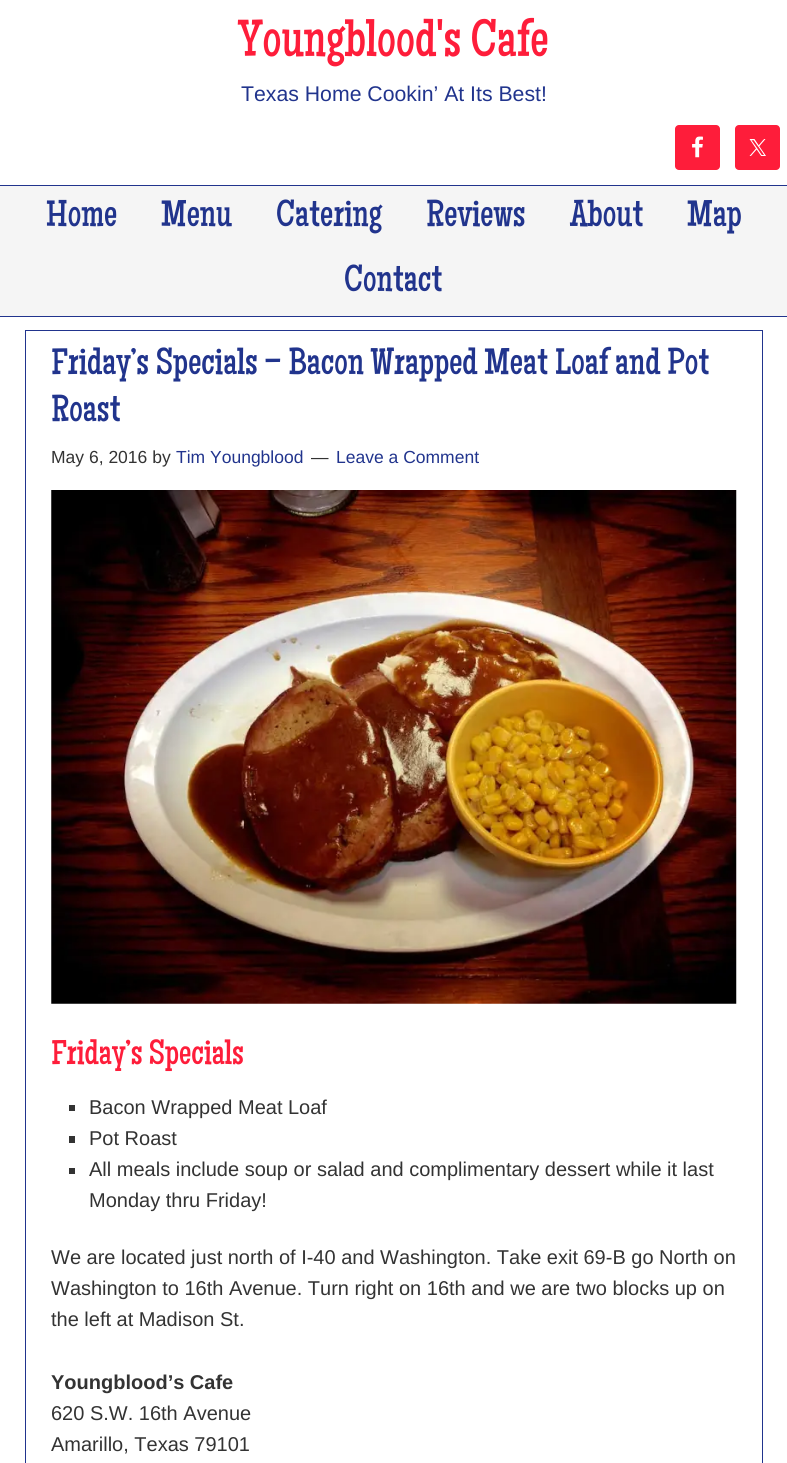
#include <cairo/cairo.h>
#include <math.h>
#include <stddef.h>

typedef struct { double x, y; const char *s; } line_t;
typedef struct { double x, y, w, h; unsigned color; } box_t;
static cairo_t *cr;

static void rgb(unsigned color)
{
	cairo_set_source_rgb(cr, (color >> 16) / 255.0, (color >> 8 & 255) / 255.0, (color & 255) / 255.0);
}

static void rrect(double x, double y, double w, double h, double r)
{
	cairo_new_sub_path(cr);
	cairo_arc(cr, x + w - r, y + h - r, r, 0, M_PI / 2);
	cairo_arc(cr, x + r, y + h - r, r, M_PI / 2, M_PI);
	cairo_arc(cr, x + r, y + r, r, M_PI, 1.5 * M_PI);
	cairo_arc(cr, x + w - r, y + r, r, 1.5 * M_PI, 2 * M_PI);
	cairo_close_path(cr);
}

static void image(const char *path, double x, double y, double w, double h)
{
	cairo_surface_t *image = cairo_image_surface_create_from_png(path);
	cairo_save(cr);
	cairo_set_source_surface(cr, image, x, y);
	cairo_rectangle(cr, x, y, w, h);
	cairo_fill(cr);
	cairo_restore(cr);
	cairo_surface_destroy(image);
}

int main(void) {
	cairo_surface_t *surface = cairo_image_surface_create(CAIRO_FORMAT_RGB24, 787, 1463);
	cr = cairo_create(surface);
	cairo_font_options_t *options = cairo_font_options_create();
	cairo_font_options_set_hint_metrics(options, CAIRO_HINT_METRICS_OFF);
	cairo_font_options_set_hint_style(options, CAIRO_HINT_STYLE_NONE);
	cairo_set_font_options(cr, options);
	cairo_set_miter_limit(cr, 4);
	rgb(0xffffff);
	cairo_paint(cr);
	rgb(0xfe1d3a);
	rrect(675, 125, 45, 45, 4);
	cairo_fill(cr);
	image("img/1.png", 692, 136, 11, 22);
	rrect(735, 125, 45, 45, 4);
	cairo_fill(cr);
	image("img/2.png", 749, 139, 17, 17);
	{
		static const box_t items[] = {
			{0, 186, 787, 130, 0xf5f5f5},
			{0, 185, 787, 1, 0x21348d},
			{0, 316, 787, 1, 0x21348d},
		};
		for (size_t i = 0; i < sizeof items / sizeof *items; i++) {
			rgb(items[i].color);
			cairo_rectangle(cr, items[i].x, items[i].y, items[i].w, items[i].h);
			cairo_fill(cr);
		}
	}
	cairo_rectangle(cr, 25.5, 330.5, 737, 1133);
	cairo_set_line_width(cr, 1);
	cairo_stroke(cr);
	image("img/3.png", 51, 490, 686, 514);
	{
		static const box_t items[] = {
			{69, 1105, 6, 6, 0x333333},
			{69, 1136, 6, 7, 0x333333},
			{69, 1168, 6, 6, 0x333333},
		};
		for (size_t i = 0; i < sizeof items / sizeof *items; i++) {
			rgb(items[i].color);
			cairo_rectangle(cr, items[i].x, items[i].y, items[i].w, items[i].h);
			cairo_fill(cr);
		}
	}
	cairo_select_font_face(cr, "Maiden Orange", CAIRO_FONT_SLANT_NORMAL, CAIRO_FONT_WEIGHT_NORMAL);
	cairo_set_font_size(cr, 52.5);
	rgb(0xfe1d3a);
	cairo_move_to(cr, 238, 56);
	cairo_show_text(cr, "Youngblood's Cafe");
	cairo_select_font_face(cr, "Liberation Sans", CAIRO_FONT_SLANT_NORMAL, CAIRO_FONT_WEIGHT_NORMAL);
	cairo_set_font_size(cr, 21.25);
	rgb(0x21348d);
	cairo_move_to(cr, 241, 101);
	cairo_show_text(cr, "Texas Home Cookin’ At Its Best!");
	cairo_select_font_face(cr, "Maiden Orange", CAIRO_FONT_SLANT_NORMAL, CAIRO_FONT_WEIGHT_NORMAL);
	cairo_set_font_size(cr, 37.5);
	{
		static const line_t items[] = {
			{46, 226, "Home"},
			{161, 226, "Menu"},
			{276, 226, "Catering"},
			{426, 226, "Reviews"},
			{570, 226, "About"},
			{687, 226, "Map"},
			{344, 291, "Contact"},
			{51, 374, "Friday’s Specials – Bacon Wrapped Meat Loaf and Pot"},
			{51, 421, "Roast"},
		};
		for (size_t i = 0; i < sizeof items / sizeof *items; i++) {
			cairo_move_to(cr, items[i].x, items[i].y);
			cairo_show_text(cr, items[i].s);
		}
	}
	cairo_select_font_face(cr, "Liberation Sans", CAIRO_FONT_SLANT_NORMAL, CAIRO_FONT_WEIGHT_NORMAL);
	cairo_set_font_size(cr, 17.5);
	rgb(0x333333);
	cairo_move_to(cr, 51, 463);
	cairo_show_text(cr, "May 6, 2016 by");
	rgb(0x21348d);
	cairo_move_to(cr, 176, 463);
	cairo_show_text(cr, "Tim Youngblood");
	rgb(0x333333);
	cairo_move_to(cr, 311, 463);
	cairo_show_text(cr, "—");
	rgb(0x21348d);
	cairo_move_to(cr, 336, 463);
	cairo_show_text(cr, "Leave a Comment");
	cairo_select_font_face(cr, "Maiden Orange", CAIRO_FONT_SLANT_NORMAL, CAIRO_FONT_WEIGHT_NORMAL);
	cairo_set_font_size(cr, 35);
	rgb(0xfe1d3a);
	cairo_move_to(cr, 51, 1064);
	cairo_show_text(cr, "Friday’s Specials");
	cairo_select_font_face(cr, "Liberation Sans", CAIRO_FONT_SLANT_NORMAL, CAIRO_FONT_WEIGHT_NORMAL);
	cairo_set_font_size(cr, 20);
	rgb(0x333333);
	{
		static const line_t items[] = {
			{89, 1114, "Bacon Wrapped Meat Loaf"},
			{89, 1145, "Pot Roast"},
			{89, 1176, "All meals include soup or salad and complimentary dessert while it last"},
			{89, 1207, "Monday thru Friday!"},
			{51, 1264, "We are located just north of I-40 and Washington. Take exit 69-B go North on"},
			{51, 1295, "Washington to 16th Avenue. Turn right on 16th and we are two blocks up on"},
			{51, 1326, "the left at Madison St."},
		};
		for (size_t i = 0; i < sizeof items / sizeof *items; i++) {
			cairo_move_to(cr, items[i].x, items[i].y);
			cairo_show_text(cr, items[i].s);
		}
	}
	cairo_select_font_face(cr, "Liberation Sans", CAIRO_FONT_SLANT_NORMAL, CAIRO_FONT_WEIGHT_BOLD);
	cairo_move_to(cr, 51, 1389);
	cairo_show_text(cr, "Youngblood’s Cafe");
	cairo_select_font_face(cr, "Liberation Sans", CAIRO_FONT_SLANT_NORMAL, CAIRO_FONT_WEIGHT_NORMAL);
	cairo_move_to(cr, 51, 1420);
	cairo_show_text(cr, "620 S.W. 16th Avenue");
	cairo_move_to(cr, 51, 1451);
	cairo_show_text(cr, "Amarillo, Texas 79101");
	cairo_surface_write_to_png(surface, "page.png");
	cairo_font_options_destroy(options);
	cairo_destroy(cr);
	cairo_surface_destroy(surface);
	return 0;
}
